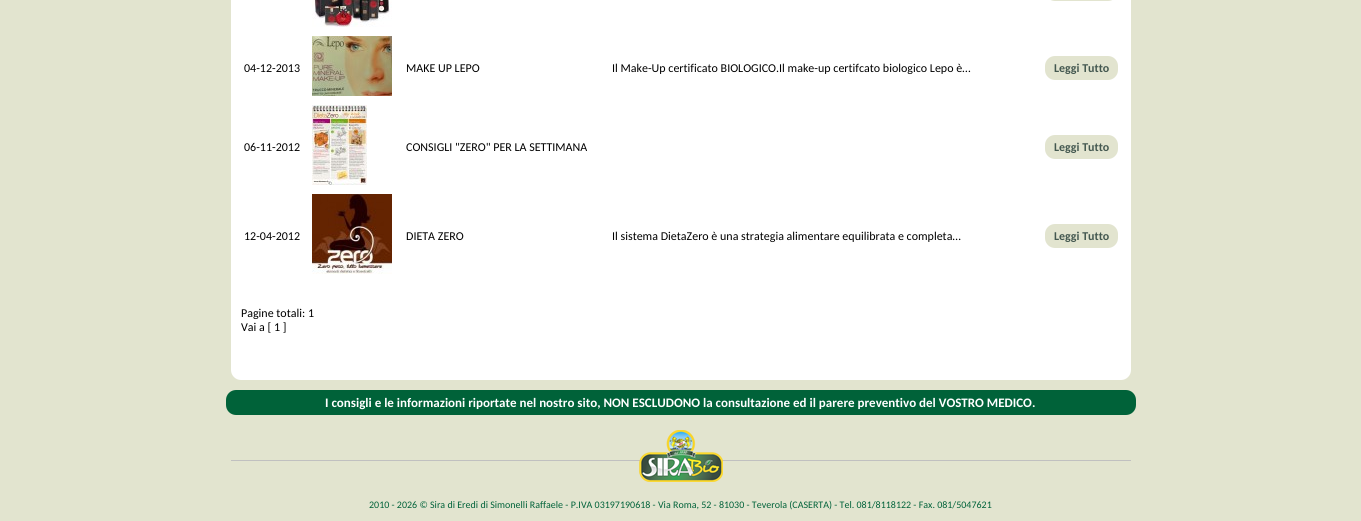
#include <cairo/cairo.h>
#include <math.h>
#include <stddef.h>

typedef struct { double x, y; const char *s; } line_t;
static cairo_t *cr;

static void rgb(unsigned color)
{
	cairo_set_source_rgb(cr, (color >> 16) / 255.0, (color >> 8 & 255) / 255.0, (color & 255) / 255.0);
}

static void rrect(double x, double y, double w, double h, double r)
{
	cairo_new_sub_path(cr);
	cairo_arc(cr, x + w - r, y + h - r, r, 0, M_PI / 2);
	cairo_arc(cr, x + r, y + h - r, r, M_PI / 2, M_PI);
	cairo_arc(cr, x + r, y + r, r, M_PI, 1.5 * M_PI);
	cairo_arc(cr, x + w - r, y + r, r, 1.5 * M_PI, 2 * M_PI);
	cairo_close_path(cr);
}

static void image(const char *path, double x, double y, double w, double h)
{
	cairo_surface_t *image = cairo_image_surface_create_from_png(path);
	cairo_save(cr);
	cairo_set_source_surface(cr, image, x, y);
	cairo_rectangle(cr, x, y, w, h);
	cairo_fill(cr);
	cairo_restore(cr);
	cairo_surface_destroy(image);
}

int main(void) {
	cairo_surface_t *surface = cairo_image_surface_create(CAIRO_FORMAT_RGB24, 1361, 521);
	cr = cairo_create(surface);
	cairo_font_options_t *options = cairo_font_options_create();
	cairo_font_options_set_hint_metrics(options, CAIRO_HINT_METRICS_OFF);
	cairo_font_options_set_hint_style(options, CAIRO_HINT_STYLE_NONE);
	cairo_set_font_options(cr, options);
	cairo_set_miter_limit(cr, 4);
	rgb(0xe2e4cf);
	cairo_paint(cr);
	rgb(0xffffff);
	cairo_new_path(cr);
	cairo_move_to(cr, 231, -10);
	cairo_line_to(cr, 1131, -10);
	cairo_line_to(cr, 1131, 370);
	cairo_curve_to(cr, 1131, 375.5, 1126.5, 380, 1121, 380);
	cairo_line_to(cr, 241, 380);
	cairo_curve_to(cr, 235.5, 380, 231, 375.5, 231, 370);
	cairo_close_path(cr);
	cairo_fill(cr);
	rgb(0xe2e4cf);
	rrect(1045, -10, 73, 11, 10);
	cairo_fill(cr);
	image("img/1.png", 312, 0, 80, 27);
	image("img/2.png", 312, 36, 80, 60);
	rrect(1045, 56, 73, 24, 10);
	cairo_fill(cr);
	image("img/3.png", 312, 105, 55, 80);
	rrect(1045, 135, 73, 24, 10);
	cairo_fill(cr);
	image("img/4.png", 312, 194, 80, 80);
	rrect(1045, 224, 73, 24, 10);
	cairo_fill(cr);
	rgb(0x006239);
	rrect(226, 390, 910, 25, 10);
	cairo_fill(cr);
	rgb(0xc0c0c0);
	cairo_rectangle(cr, 231, 460, 900, 1);
	cairo_fill(cr);
	image("img/5.png", 639, 430, 84, 52);
	cairo_select_font_face(cr, "Carlito", CAIRO_FONT_SLANT_NORMAL, CAIRO_FONT_WEIGHT_NORMAL);
	cairo_set_font_size(cr, 12);
	rgb(0x000000);
	{
		static const line_t items[] = {
			{244, 72, "04-12-2013"},
			{406, 72, "MAKE UP LEPO"},
			{612, 72, "Il Make-Up certificato BIOLOGICO.Il make-up certifcato biologico Lepo è…"},
		};
		for (size_t i = 0; i < sizeof items / sizeof *items; i++) {
			cairo_move_to(cr, items[i].x, items[i].y);
			cairo_show_text(cr, items[i].s);
		}
	}
	cairo_select_font_face(cr, "Carlito", CAIRO_FONT_SLANT_NORMAL, CAIRO_FONT_WEIGHT_BOLD);
	rgb(0x445850);
	cairo_move_to(cr, 1054, 72);
	cairo_show_text(cr, "Leggi Tutto");
	cairo_select_font_face(cr, "Carlito", CAIRO_FONT_SLANT_NORMAL, CAIRO_FONT_WEIGHT_NORMAL);
	rgb(0x000000);
	cairo_move_to(cr, 244, 151);
	cairo_show_text(cr, "06-11-2012");
	cairo_move_to(cr, 406, 151);
	cairo_show_text(cr, "CONSIGLI \"ZERO\" PER LA SETTIMANA");
	cairo_select_font_face(cr, "Carlito", CAIRO_FONT_SLANT_NORMAL, CAIRO_FONT_WEIGHT_BOLD);
	rgb(0x445850);
	cairo_move_to(cr, 1054, 151);
	cairo_show_text(cr, "Leggi Tutto");
	cairo_select_font_face(cr, "Carlito", CAIRO_FONT_SLANT_NORMAL, CAIRO_FONT_WEIGHT_NORMAL);
	rgb(0x000000);
	{
		static const line_t items[] = {
			{244, 240, "12-04-2012"},
			{406, 240, "DIETA ZERO"},
			{612, 240, "Il sistema DietaZero è una strategia alimentare equilibrata e completa…"},
		};
		for (size_t i = 0; i < sizeof items / sizeof *items; i++) {
			cairo_move_to(cr, items[i].x, items[i].y);
			cairo_show_text(cr, items[i].s);
		}
	}
	cairo_select_font_face(cr, "Carlito", CAIRO_FONT_SLANT_NORMAL, CAIRO_FONT_WEIGHT_BOLD);
	rgb(0x445850);
	cairo_move_to(cr, 1054, 240);
	cairo_show_text(cr, "Leggi Tutto");
	cairo_select_font_face(cr, "Carlito", CAIRO_FONT_SLANT_NORMAL, CAIRO_FONT_WEIGHT_NORMAL);
	rgb(0x000000);
	cairo_move_to(cr, 241, 317);
	cairo_show_text(cr, "Pagine totali: 1");
	cairo_move_to(cr, 241, 331);
	cairo_show_text(cr, "Vai a [ 1 ]");
	cairo_select_font_face(cr, "Carlito", CAIRO_FONT_SLANT_NORMAL, CAIRO_FONT_WEIGHT_BOLD);
	cairo_set_font_size(cr, 13);
	rgb(0xffffff);
	cairo_move_to(cr, 325, 407);
	cairo_show_text(cr, "I consigli e le informazioni riportate nel nostro sito, NON ESCLUDONO la consultazione ed il parere preventivo del VOSTRO MEDICO.");
	cairo_select_font_face(cr, "Carlito", CAIRO_FONT_SLANT_NORMAL, CAIRO_FONT_WEIGHT_NORMAL);
	cairo_set_font_size(cr, 10);
	rgb(0x006239);
	cairo_move_to(cr, 369, 508);
	cairo_show_text(cr, "2010 - 2026 © Sira di Eredi di Simonelli Raffaele - P.IVA 03197190618 - Via Roma, 52 - 81030 - Teverola (CASERTA) - Tel. 081/8118122 - Fax. 081/5047621");
	cairo_surface_write_to_png(surface, "page.png");
	cairo_font_options_destroy(options);
	cairo_destroy(cr);
	cairo_surface_destroy(surface);
	return 0;
}
